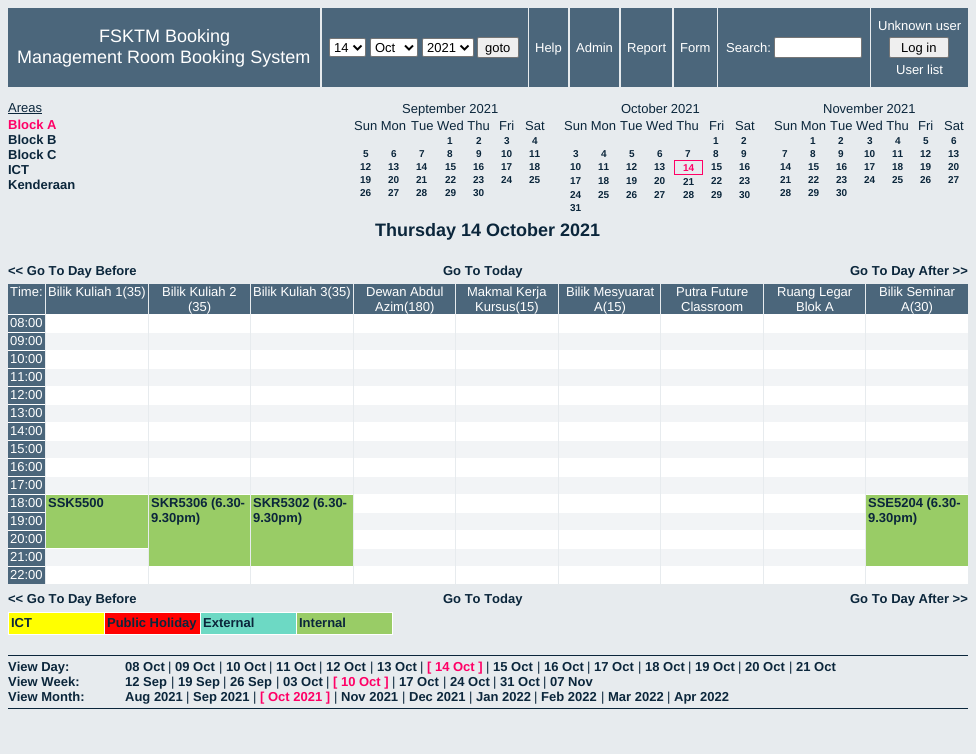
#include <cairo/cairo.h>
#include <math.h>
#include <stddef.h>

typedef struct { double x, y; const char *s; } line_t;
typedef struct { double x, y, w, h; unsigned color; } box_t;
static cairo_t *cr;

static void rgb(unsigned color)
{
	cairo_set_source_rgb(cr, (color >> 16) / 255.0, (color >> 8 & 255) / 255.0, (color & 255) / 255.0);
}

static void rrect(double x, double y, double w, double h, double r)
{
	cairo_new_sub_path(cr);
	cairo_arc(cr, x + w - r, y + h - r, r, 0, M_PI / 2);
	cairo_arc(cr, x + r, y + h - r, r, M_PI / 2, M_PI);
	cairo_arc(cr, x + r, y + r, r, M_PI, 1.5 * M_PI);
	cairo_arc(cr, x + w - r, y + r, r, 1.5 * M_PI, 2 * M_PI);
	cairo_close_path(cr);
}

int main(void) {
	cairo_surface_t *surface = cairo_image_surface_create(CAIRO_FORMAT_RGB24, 976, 754);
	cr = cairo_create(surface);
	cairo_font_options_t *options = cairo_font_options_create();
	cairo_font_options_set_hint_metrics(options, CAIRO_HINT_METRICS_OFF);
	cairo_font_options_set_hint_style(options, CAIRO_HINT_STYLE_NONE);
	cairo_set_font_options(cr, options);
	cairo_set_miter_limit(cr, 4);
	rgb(0xe7ebee);
	cairo_paint(cr);
	rgb(0x4b667b);
	cairo_rectangle(cr, 8, 8, 312, 79);
	cairo_fill(cr);
	cairo_rectangle(cr, 322, 8, 206, 79);
	cairo_fill(cr);
	rgb(0xffffff);
	rrect(329.5, 38.5, 36, 18, 1.5);
	cairo_fill_preserve(cr);
	rgb(0x767676);
	cairo_set_line_width(cr, 1);
	cairo_stroke(cr);
	cairo_new_path(cr);
	cairo_move_to(cr, 353.5, 45.5);
	cairo_line_to(cr, 357.5, 49.5);
	cairo_line_to(cr, 361.5, 45.5);
	rgb(0x000000);
	cairo_set_line_width(cr, 2);
	cairo_stroke(cr);
	rgb(0xffffff);
	rrect(370.5, 38.5, 47, 18, 1.5);
	cairo_fill_preserve(cr);
	rgb(0x767676);
	cairo_set_line_width(cr, 1);
	cairo_stroke(cr);
	cairo_new_path(cr);
	cairo_move_to(cr, 405, 45.5);
	cairo_line_to(cr, 409, 49.5);
	cairo_line_to(cr, 413, 45.5);
	rgb(0x000000);
	cairo_set_line_width(cr, 2);
	cairo_stroke(cr);
	rgb(0xffffff);
	rrect(422.5, 38.5, 51, 18, 1.5);
	cairo_fill_preserve(cr);
	rgb(0x767676);
	cairo_set_line_width(cr, 1);
	cairo_stroke(cr);
	cairo_new_path(cr);
	cairo_move_to(cr, 460.5, 45.5);
	cairo_line_to(cr, 464.5, 49.5);
	cairo_line_to(cr, 468.5, 45.5);
	rgb(0x000000);
	cairo_set_line_width(cr, 2);
	cairo_stroke(cr);
	rgb(0xefefef);
	rrect(477.5, 37.5, 41, 20, 1.5);
	cairo_fill_preserve(cr);
	rgb(0x767676);
	cairo_set_line_width(cr, 1);
	cairo_stroke(cr);
	{
		static const box_t items[] = {
			{529, 8, 39, 79, 0x4b667b},
			{570, 8, 49, 79, 0x4b667b},
			{621, 8, 51, 79, 0x4b667b},
			{674, 8, 43, 79, 0x4b667b},
			{718, 8, 152, 79, 0x4b667b},
		};
		for (size_t i = 0; i < sizeof items / sizeof *items; i++) {
			rgb(items[i].color);
			cairo_rectangle(cr, items[i].x, items[i].y, items[i].w, items[i].h);
			cairo_fill(cr);
		}
	}
	rgb(0xffffff);
	rrect(774.5, 37.5, 87, 20, 1.5);
	cairo_fill_preserve(cr);
	rgb(0x767676);
	cairo_stroke(cr);
	rgb(0x4b667b);
	cairo_rectangle(cr, 871, 8, 97, 79);
	cairo_fill(cr);
	rgb(0xefefef);
	rrect(889.5, 37.5, 59, 20, 1.5);
	cairo_fill_preserve(cr);
	rgb(0x767676);
	cairo_stroke(cr);
	{
		static const box_t items[] = {
			{8, 113, 34, 1, 0x0b263b},
			{674, 160, 29, 1, 0xff0066},
			{702, 160, 1, 15, 0xff0066},
			{674, 174, 29, 1, 0xff0066},
			{674, 160, 1, 15, 0xff0066},
			{8, 284, 37, 30, 0x4b667b},
			{46, 284, 102, 30, 0x4b667b},
			{149, 284, 101, 30, 0x4b667b},
			{251, 284, 102, 30, 0x4b667b},
			{354, 284, 101, 30, 0x4b667b},
			{456, 284, 102, 30, 0x4b667b},
			{559, 284, 101, 30, 0x4b667b},
			{661, 284, 102, 30, 0x4b667b},
			{764, 284, 101, 30, 0x4b667b},
			{866, 284, 102, 30, 0x4b667b},
			{8, 315, 37, 17, 0x4b667b},
			{8, 314, 37, 1, 0xffffff},
			{46, 314, 102, 18, 0xffffff},
			{149, 314, 101, 18, 0xffffff},
			{251, 314, 102, 18, 0xffffff},
			{354, 314, 101, 18, 0xffffff},
			{456, 314, 102, 18, 0xffffff},
			{559, 314, 101, 18, 0xffffff},
			{661, 314, 102, 18, 0xffffff},
			{764, 314, 101, 18, 0xffffff},
			{866, 314, 102, 18, 0xffffff},
			{8, 333, 37, 17, 0x4b667b},
			{8, 332, 960, 1, 0xffffff},
			{46, 333, 102, 17, 0xf2f4f6},
			{45, 332, 1, 1, 0xe7ebee},
			{149, 333, 101, 17, 0xf2f4f6},
			{148, 332, 1, 1, 0xe7ebee},
			{251, 333, 102, 17, 0xf2f4f6},
			{250, 332, 1, 1, 0xe7ebee},
			{354, 333, 101, 17, 0xf2f4f6},
			{353, 332, 1, 1, 0xe7ebee},
			{456, 333, 102, 17, 0xf2f4f6},
			{455, 332, 1, 1, 0xe7ebee},
			{559, 333, 101, 17, 0xf2f4f6},
			{558, 332, 1, 1, 0xe7ebee},
			{661, 333, 102, 17, 0xf2f4f6},
			{660, 332, 1, 1, 0xe7ebee},
			{764, 333, 101, 17, 0xf2f4f6},
			{763, 332, 1, 1, 0xe7ebee},
			{866, 333, 102, 17, 0xf2f4f6},
			{865, 332, 1, 1, 0xe7ebee},
			{8, 351, 37, 17, 0x4b667b},
			{8, 350, 37, 1, 0xffffff},
			{46, 350, 102, 18, 0xffffff},
			{149, 350, 101, 18, 0xffffff},
			{251, 350, 102, 18, 0xffffff},
			{354, 350, 101, 18, 0xffffff},
			{456, 350, 102, 18, 0xffffff},
			{559, 350, 101, 18, 0xffffff},
			{661, 350, 102, 18, 0xffffff},
			{764, 350, 101, 18, 0xffffff},
			{866, 350, 102, 18, 0xffffff},
			{8, 369, 37, 17, 0x4b667b},
			{8, 368, 960, 1, 0xffffff},
			{46, 369, 102, 17, 0xf2f4f6},
			{45, 368, 1, 1, 0xe7ebee},
			{149, 369, 101, 17, 0xf2f4f6},
			{148, 368, 1, 1, 0xe7ebee},
			{251, 369, 102, 17, 0xf2f4f6},
			{250, 368, 1, 1, 0xe7ebee},
			{354, 369, 101, 17, 0xf2f4f6},
			{353, 368, 1, 1, 0xe7ebee},
			{456, 369, 102, 17, 0xf2f4f6},
			{455, 368, 1, 1, 0xe7ebee},
			{559, 369, 101, 17, 0xf2f4f6},
			{558, 368, 1, 1, 0xe7ebee},
			{661, 369, 102, 17, 0xf2f4f6},
			{660, 368, 1, 1, 0xe7ebee},
			{764, 369, 101, 17, 0xf2f4f6},
			{763, 368, 1, 1, 0xe7ebee},
			{866, 369, 102, 17, 0xf2f4f6},
			{865, 368, 1, 1, 0xe7ebee},
			{8, 387, 37, 17, 0x4b667b},
			{8, 386, 37, 1, 0xffffff},
			{46, 386, 102, 18, 0xffffff},
			{149, 386, 101, 18, 0xffffff},
			{251, 386, 102, 18, 0xffffff},
			{354, 386, 101, 18, 0xffffff},
			{456, 386, 102, 18, 0xffffff},
			{559, 386, 101, 18, 0xffffff},
			{661, 386, 102, 18, 0xffffff},
			{764, 386, 101, 18, 0xffffff},
			{866, 386, 102, 18, 0xffffff},
			{8, 405, 37, 17, 0x4b667b},
			{8, 404, 960, 1, 0xffffff},
			{46, 405, 102, 17, 0xf2f4f6},
			{45, 404, 1, 1, 0xe7ebee},
			{149, 405, 101, 17, 0xf2f4f6},
			{148, 404, 1, 1, 0xe7ebee},
			{251, 405, 102, 17, 0xf2f4f6},
			{250, 404, 1, 1, 0xe7ebee},
			{354, 405, 101, 17, 0xf2f4f6},
			{353, 404, 1, 1, 0xe7ebee},
			{456, 405, 102, 17, 0xf2f4f6},
			{455, 404, 1, 1, 0xe7ebee},
			{559, 405, 101, 17, 0xf2f4f6},
			{558, 404, 1, 1, 0xe7ebee},
			{661, 405, 102, 17, 0xf2f4f6},
			{660, 404, 1, 1, 0xe7ebee},
			{764, 405, 101, 17, 0xf2f4f6},
			{763, 404, 1, 1, 0xe7ebee},
			{866, 405, 102, 17, 0xf2f4f6},
			{865, 404, 1, 1, 0xe7ebee},
			{8, 423, 37, 17, 0x4b667b},
			{8, 422, 37, 1, 0xffffff},
			{46, 422, 102, 18, 0xffffff},
			{149, 422, 101, 18, 0xffffff},
			{251, 422, 102, 18, 0xffffff},
			{354, 422, 101, 18, 0xffffff},
			{456, 422, 102, 18, 0xffffff},
			{559, 422, 101, 18, 0xffffff},
			{661, 422, 102, 18, 0xffffff},
			{764, 422, 101, 18, 0xffffff},
			{866, 422, 102, 18, 0xffffff},
			{8, 441, 37, 17, 0x4b667b},
			{8, 440, 960, 1, 0xffffff},
			{46, 441, 102, 17, 0xf2f4f6},
			{45, 440, 1, 1, 0xe7ebee},
			{149, 441, 101, 17, 0xf2f4f6},
			{148, 440, 1, 1, 0xe7ebee},
			{251, 441, 102, 17, 0xf2f4f6},
			{250, 440, 1, 1, 0xe7ebee},
			{354, 441, 101, 17, 0xf2f4f6},
			{353, 440, 1, 1, 0xe7ebee},
			{456, 441, 102, 17, 0xf2f4f6},
			{455, 440, 1, 1, 0xe7ebee},
			{559, 441, 101, 17, 0xf2f4f6},
			{558, 440, 1, 1, 0xe7ebee},
			{661, 441, 102, 17, 0xf2f4f6},
			{660, 440, 1, 1, 0xe7ebee},
			{764, 441, 101, 17, 0xf2f4f6},
			{763, 440, 1, 1, 0xe7ebee},
			{866, 441, 102, 17, 0xf2f4f6},
			{865, 440, 1, 1, 0xe7ebee},
			{8, 459, 37, 17, 0x4b667b},
			{8, 458, 37, 1, 0xffffff},
			{46, 458, 102, 18, 0xffffff},
			{149, 458, 101, 18, 0xffffff},
			{251, 458, 102, 18, 0xffffff},
			{354, 458, 101, 18, 0xffffff},
			{456, 458, 102, 18, 0xffffff},
			{559, 458, 101, 18, 0xffffff},
			{661, 458, 102, 18, 0xffffff},
			{764, 458, 101, 18, 0xffffff},
			{866, 458, 102, 18, 0xffffff},
			{8, 477, 37, 17, 0x4b667b},
			{8, 476, 960, 1, 0xffffff},
			{46, 477, 102, 17, 0xf2f4f6},
			{45, 476, 1, 1, 0xe7ebee},
			{149, 477, 101, 17, 0xf2f4f6},
			{148, 476, 1, 1, 0xe7ebee},
			{251, 477, 102, 17, 0xf2f4f6},
			{250, 476, 1, 1, 0xe7ebee},
			{354, 477, 101, 17, 0xf2f4f6},
			{353, 476, 1, 1, 0xe7ebee},
			{456, 477, 102, 17, 0xf2f4f6},
			{455, 476, 1, 1, 0xe7ebee},
			{559, 477, 101, 17, 0xf2f4f6},
			{558, 476, 1, 1, 0xe7ebee},
			{661, 477, 102, 17, 0xf2f4f6},
			{660, 476, 1, 1, 0xe7ebee},
			{764, 477, 101, 17, 0xf2f4f6},
			{763, 476, 1, 1, 0xe7ebee},
			{866, 477, 102, 17, 0xf2f4f6},
			{865, 476, 1, 1, 0xe7ebee},
			{8, 495, 37, 17, 0x4b667b},
			{8, 494, 345, 1, 0xffffff},
			{46, 495, 102, 53, 0x99cc66},
			{45, 494, 1, 1, 0xe7ebee},
			{149, 495, 101, 71, 0x99cc66},
			{148, 494, 1, 1, 0xe7ebee},
			{251, 495, 102, 71, 0x99cc66},
			{250, 494, 1, 1, 0xe7ebee},
			{354, 494, 101, 18, 0xffffff},
			{456, 494, 102, 18, 0xffffff},
			{559, 494, 101, 18, 0xffffff},
			{661, 494, 102, 18, 0xffffff},
			{764, 494, 101, 18, 0xffffff},
			{866, 495, 102, 71, 0x99cc66},
			{865, 494, 103, 1, 0xffffff},
			{865, 494, 1, 1, 0xe7ebee},
			{354, 513, 101, 17, 0xf2f4f6},
			{353, 512, 512, 1, 0xffffff},
			{353, 512, 1, 1, 0xe7ebee},
			{8, 513, 37, 17, 0x4b667b},
			{8, 512, 37, 1, 0xffffff},
			{456, 513, 102, 17, 0xf2f4f6},
			{455, 512, 1, 1, 0xe7ebee},
			{559, 513, 101, 17, 0xf2f4f6},
			{558, 512, 1, 1, 0xe7ebee},
			{661, 513, 102, 17, 0xf2f4f6},
			{660, 512, 1, 1, 0xe7ebee},
			{764, 513, 101, 17, 0xf2f4f6},
			{763, 512, 1, 1, 0xe7ebee},
			{8, 531, 37, 17, 0x4b667b},
			{8, 530, 37, 1, 0xffffff},
			{354, 530, 101, 18, 0xffffff},
			{456, 530, 102, 18, 0xffffff},
			{559, 530, 101, 18, 0xffffff},
			{661, 530, 102, 18, 0xffffff},
			{764, 530, 101, 18, 0xffffff},
			{46, 549, 102, 17, 0xf2f4f6},
			{8, 548, 140, 1, 0xffffff},
			{45, 548, 1, 1, 0xe7ebee},
			{354, 549, 101, 17, 0xf2f4f6},
			{353, 548, 512, 1, 0xffffff},
			{353, 548, 1, 1, 0xe7ebee},
			{8, 549, 37, 17, 0x4b667b},
			{456, 549, 102, 17, 0xf2f4f6},
			{455, 548, 1, 1, 0xe7ebee},
			{559, 549, 101, 17, 0xf2f4f6},
			{558, 548, 1, 1, 0xe7ebee},
			{661, 549, 102, 17, 0xf2f4f6},
			{660, 548, 1, 1, 0xe7ebee},
			{764, 549, 101, 17, 0xf2f4f6},
			{763, 548, 1, 1, 0xe7ebee},
			{8, 567, 37, 17, 0x4b667b},
			{8, 566, 37, 1, 0xffffff},
			{46, 566, 102, 18, 0xffffff},
			{149, 566, 101, 18, 0xffffff},
			{251, 566, 102, 18, 0xffffff},
			{354, 566, 101, 18, 0xffffff},
			{456, 566, 102, 18, 0xffffff},
			{559, 566, 101, 18, 0xffffff},
			{661, 566, 102, 18, 0xffffff},
			{764, 566, 101, 18, 0xffffff},
			{866, 566, 102, 18, 0xffffff},
			{9, 613, 95, 21, 0xffff00},
			{296, 612, 97, 1, 0xffffff},
			{392, 612, 1, 23, 0xffffff},
			{296, 634, 97, 1, 0xffffff},
			{296, 612, 1, 23, 0xffffff},
			{200, 612, 97, 1, 0xffffff},
			{200, 634, 97, 1, 0xffffff},
			{200, 612, 1, 23, 0xffffff},
			{104, 612, 97, 1, 0xffffff},
			{104, 634, 97, 1, 0xffffff},
			{104, 612, 1, 23, 0xffffff},
			{8, 612, 97, 1, 0xffffff},
			{8, 634, 97, 1, 0xffffff},
			{8, 612, 1, 23, 0xffffff},
			{105, 613, 95, 21, 0xff0000},
			{201, 613, 95, 21, 0x6dd9c4},
			{297, 613, 95, 21, 0x99cc66},
			{8, 655, 960, 1, 0x0b263b},
			{8, 708, 960, 1, 0x0b263b},
		};
		for (size_t i = 0; i < sizeof items / sizeof *items; i++) {
			rgb(items[i].color);
			cairo_rectangle(cr, items[i].x, items[i].y, items[i].w, items[i].h);
			cairo_fill(cr);
		}
	}
	cairo_select_font_face(cr, "Liberation Sans", CAIRO_FONT_SLANT_NORMAL, CAIRO_FONT_WEIGHT_NORMAL);
	cairo_set_font_size(cr, 18);
	rgb(0xffffff);
	cairo_move_to(cr, 99, 42);
	cairo_show_text(cr, "FSKTM Booking");
	cairo_move_to(cr, 17, 63);
	cairo_show_text(cr, "Management Room Booking System");
	cairo_set_font_size(cr, 13);
	rgb(0x000000);
	{
		static const line_t items[] = {
			{334, 52, "14"},
			{375, 52, "Oct"},
			{427, 52, "2021"},
			{485, 52, "goto"},
		};
		for (size_t i = 0; i < sizeof items / sizeof *items; i++) {
			cairo_move_to(cr, items[i].x, items[i].y);
			cairo_show_text(cr, items[i].s);
		}
	}
	rgb(0xffffff);
	{
		static const line_t items[] = {
			{535, 52, "Help"},
			{576, 52, "Admin"},
			{627, 52, "Report"},
			{680, 52, "Form"},
			{726, 52, "Search:"},
			{878, 30, "Unknown user"},
		};
		for (size_t i = 0; i < sizeof items / sizeof *items; i++) {
			cairo_move_to(cr, items[i].x, items[i].y);
			cairo_show_text(cr, items[i].s);
		}
	}
	rgb(0x000000);
	cairo_move_to(cr, 901, 52);
	cairo_show_text(cr, "Log in");
	rgb(0xffffff);
	cairo_move_to(cr, 896, 74);
	cairo_show_text(cr, "User list");
	rgb(0x0b263b);
	cairo_move_to(cr, 8, 112);
	cairo_show_text(cr, "Areas");
	cairo_select_font_face(cr, "Liberation Sans", CAIRO_FONT_SLANT_NORMAL, CAIRO_FONT_WEIGHT_BOLD);
	rgb(0xff0066);
	cairo_move_to(cr, 8, 129);
	cairo_show_text(cr, "Block A");
	rgb(0x0b263b);
	{
		static const line_t items[] = {
			{8, 144, "Block B"},
			{8, 159, "Block C"},
			{8, 174, "ICT"},
			{8, 189, "Kenderaan"},
		};
		for (size_t i = 0; i < sizeof items / sizeof *items; i++) {
			cairo_move_to(cr, items[i].x, items[i].y);
			cairo_show_text(cr, items[i].s);
		}
	}
	cairo_select_font_face(cr, "Liberation Sans", CAIRO_FONT_SLANT_NORMAL, CAIRO_FONT_WEIGHT_NORMAL);
	{
		static const line_t items[] = {
			{402, 113, "September 2021"},
			{354, 130, "Sun Mon"},
			{411, 130, "Tue Wed Thu"},
			{499, 130, "Fri"},
			{525, 130, "Sat"},
		};
		for (size_t i = 0; i < sizeof items / sizeof *items; i++) {
			cairo_move_to(cr, items[i].x, items[i].y);
			cairo_show_text(cr, items[i].s);
		}
	}
	cairo_select_font_face(cr, "Liberation Sans", CAIRO_FONT_SLANT_NORMAL, CAIRO_FONT_WEIGHT_BOLD);
	cairo_set_font_size(cr, 10);
	{
		static const line_t items[] = {
			{447, 144, "1"},
			{476, 144, "2"},
			{504, 144, "3"},
			{532, 144, "4"},
			{363, 157, "5"},
			{391, 157, "6"},
			{419, 157, "7"},
			{447, 157, "8"},
			{476, 157, "9"},
			{501, 157, "10"},
			{529, 157, "11"},
			{360, 170, "12"},
			{388, 170, "13"},
			{416, 170, "14"},
			{445, 170, "15"},
			{473, 170, "16"},
			{501, 170, "17"},
			{529, 170, "18"},
			{360, 183, "19"},
			{388, 183, "20"},
			{416, 183, "21"},
			{445, 183, "22"},
			{473, 183, "23"},
			{501, 183, "24"},
			{529, 183, "25"},
			{360, 196, "26"},
			{388, 196, "27"},
			{416, 196, "28"},
			{445, 196, "29"},
			{473, 196, "30"},
		};
		for (size_t i = 0; i < sizeof items / sizeof *items; i++) {
			cairo_move_to(cr, items[i].x, items[i].y);
			cairo_show_text(cr, items[i].s);
		}
	}
	cairo_select_font_face(cr, "Liberation Sans", CAIRO_FONT_SLANT_NORMAL, CAIRO_FONT_WEIGHT_NORMAL);
	cairo_set_font_size(cr, 13);
	{
		static const line_t items[] = {
			{621, 113, "October 2021"},
			{564, 130, "Sun Mon"},
			{620, 130, "Tue Wed Thu"},
			{709, 130, "Fri"},
			{735, 130, "Sat"},
		};
		for (size_t i = 0; i < sizeof items / sizeof *items; i++) {
			cairo_move_to(cr, items[i].x, items[i].y);
			cairo_show_text(cr, items[i].s);
		}
	}
	cairo_select_font_face(cr, "Liberation Sans", CAIRO_FONT_SLANT_NORMAL, CAIRO_FONT_WEIGHT_BOLD);
	cairo_set_font_size(cr, 10);
	{
		static const line_t items[] = {
			{713, 144, "1"},
			{741, 144, "2"},
			{573, 157, "3"},
			{601, 157, "4"},
			{629, 157, "5"},
			{657, 157, "6"},
			{685, 157, "7"},
			{713, 157, "8"},
			{741, 157, "9"},
			{570, 170, "10"},
			{598, 170, "11"},
			{626, 170, "12"},
			{654, 170, "13"},
		};
		for (size_t i = 0; i < sizeof items / sizeof *items; i++) {
			cairo_move_to(cr, items[i].x, items[i].y);
			cairo_show_text(cr, items[i].s);
		}
	}
	rgb(0xff0066);
	cairo_move_to(cr, 683, 171);
	cairo_show_text(cr, "14");
	rgb(0x0b263b);
	{
		static const line_t items[] = {
			{711, 170, "15"},
			{739, 170, "16"},
			{570, 184, "17"},
			{598, 184, "18"},
			{626, 184, "19"},
			{654, 184, "20"},
			{683, 185, "21"},
			{711, 184, "22"},
			{739, 184, "23"},
			{570, 198, "24"},
			{598, 198, "25"},
			{626, 198, "26"},
			{654, 198, "27"},
			{683, 198, "28"},
			{711, 198, "29"},
			{739, 198, "30"},
			{570, 211, "31"},
		};
		for (size_t i = 0; i < sizeof items / sizeof *items; i++) {
			cairo_move_to(cr, items[i].x, items[i].y);
			cairo_show_text(cr, items[i].s);
		}
	}
	cairo_select_font_face(cr, "Liberation Sans", CAIRO_FONT_SLANT_NORMAL, CAIRO_FONT_WEIGHT_NORMAL);
	cairo_set_font_size(cr, 13);
	{
		static const line_t items[] = {
			{823, 113, "November 2021"},
			{774, 130, "Sun Mon"},
			{830, 130, "Tue Wed Thu"},
			{918, 130, "Fri"},
			{944, 130, "Sat"},
		};
		for (size_t i = 0; i < sizeof items / sizeof *items; i++) {
			cairo_move_to(cr, items[i].x, items[i].y);
			cairo_show_text(cr, items[i].s);
		}
	}
	cairo_select_font_face(cr, "Liberation Sans", CAIRO_FONT_SLANT_NORMAL, CAIRO_FONT_WEIGHT_BOLD);
	cairo_set_font_size(cr, 10);
	{
		static const line_t items[] = {
			{810, 144, "1"},
			{838, 144, "2"},
			{867, 144, "3"},
			{895, 144, "4"},
			{923, 144, "5"},
			{951, 144, "6"},
			{782, 157, "7"},
			{810, 157, "8"},
			{838, 157, "9"},
			{864, 157, "10"},
			{892, 157, "11"},
			{920, 157, "12"},
			{948, 157, "13"},
			{780, 170, "14"},
			{808, 170, "15"},
			{836, 170, "16"},
			{864, 170, "17"},
			{892, 170, "18"},
			{920, 170, "19"},
			{948, 170, "20"},
			{780, 183, "21"},
			{808, 183, "22"},
			{836, 183, "23"},
			{864, 183, "24"},
			{892, 183, "25"},
			{920, 183, "26"},
			{948, 183, "27"},
			{780, 196, "28"},
			{808, 196, "29"},
			{836, 196, "30"},
		};
		for (size_t i = 0; i < sizeof items / sizeof *items; i++) {
			cairo_move_to(cr, items[i].x, items[i].y);
			cairo_show_text(cr, items[i].s);
		}
	}
	cairo_set_font_size(cr, 18);
	cairo_move_to(cr, 375, 236);
	cairo_show_text(cr, "Thursday 14 October 2021");
	cairo_set_font_size(cr, 13);
	{
		static const line_t items[] = {
			{8, 275, "<< Go To Day Before"},
			{443, 275, "Go To Today"},
			{850, 275, "Go To Day After >>"},
		};
		for (size_t i = 0; i < sizeof items / sizeof *items; i++) {
			cairo_move_to(cr, items[i].x, items[i].y);
			cairo_show_text(cr, items[i].s);
		}
	}
	cairo_select_font_face(cr, "Liberation Sans", CAIRO_FONT_SLANT_NORMAL, CAIRO_FONT_WEIGHT_NORMAL);
	rgb(0xffffff);
	{
		static const line_t items[] = {
			{10, 296, "Time:"},
			{48, 296, "Bilik Kuliah 1(35)"},
			{162, 296, "Bilik Kuliah 2"},
			{188, 311, "(35)"},
			{253, 296, "Bilik Kuliah 3(35)"},
			{366, 296, "Dewan Abdul"},
			{375, 311, "Azim(180)"},
			{467, 296, "Makmal Kerja"},
			{475, 311, "Kursus(15)"},
			{566, 296, "Bilik Mesyuarat"},
			{594, 311, "A(15)"},
			{676, 296, "Putra Future"},
			{681, 311, "Classroom"},
			{777, 296, "Ruang Legar"},
			{796, 311, "Blok A"},
			{879, 296, "Bilik Seminar"},
			{901, 311, "A(30)"},
			{10, 327, "08:00"},
			{10, 345, "09:00"},
			{10, 363, "10:00"},
			{10, 381, "11:00"},
			{10, 399, "12:00"},
			{10, 417, "13:00"},
			{10, 435, "14:00"},
			{10, 453, "15:00"},
			{10, 471, "16:00"},
			{10, 489, "17:00"},
			{10, 507, "18:00"},
		};
		for (size_t i = 0; i < sizeof items / sizeof *items; i++) {
			cairo_move_to(cr, items[i].x, items[i].y);
			cairo_show_text(cr, items[i].s);
		}
	}
	cairo_select_font_face(cr, "Liberation Sans", CAIRO_FONT_SLANT_NORMAL, CAIRO_FONT_WEIGHT_BOLD);
	rgb(0x0b263b);
	{
		static const line_t items[] = {
			{48, 507, "SSK5500"},
			{151, 507, "SKR5306 (6.30-"},
			{151, 522, "9.30pm)"},
			{253, 507, "SKR5302 (6.30-"},
			{253, 522, "9.30pm)"},
			{868, 507, "SSE5204 (6.30-"},
			{868, 522, "9.30pm)"},
		};
		for (size_t i = 0; i < sizeof items / sizeof *items; i++) {
			cairo_move_to(cr, items[i].x, items[i].y);
			cairo_show_text(cr, items[i].s);
		}
	}
	cairo_select_font_face(cr, "Liberation Sans", CAIRO_FONT_SLANT_NORMAL, CAIRO_FONT_WEIGHT_NORMAL);
	rgb(0xffffff);
	{
		static const line_t items[] = {
			{10, 525, "19:00"},
			{10, 543, "20:00"},
			{10, 561, "21:00"},
			{10, 579, "22:00"},
		};
		for (size_t i = 0; i < sizeof items / sizeof *items; i++) {
			cairo_move_to(cr, items[i].x, items[i].y);
			cairo_show_text(cr, items[i].s);
		}
	}
	cairo_select_font_face(cr, "Liberation Sans", CAIRO_FONT_SLANT_NORMAL, CAIRO_FONT_WEIGHT_BOLD);
	rgb(0x0b263b);
	{
		static const line_t items[] = {
			{8, 603, "<< Go To Day Before"},
			{443, 603, "Go To Today"},
			{850, 603, "Go To Day After >>"},
			{11, 627, "ICT"},
			{107, 627, "Public Holiday"},
			{203, 627, "External"},
			{299, 627, "Internal"},
			{8, 671, "View Day:"},
			{125, 671, "08 Oct"},
		};
		for (size_t i = 0; i < sizeof items / sizeof *items; i++) {
			cairo_move_to(cr, items[i].x, items[i].y);
			cairo_show_text(cr, items[i].s);
		}
	}
	cairo_select_font_face(cr, "Liberation Sans", CAIRO_FONT_SLANT_NORMAL, CAIRO_FONT_WEIGHT_NORMAL);
	cairo_move_to(cr, 168, 671);
	cairo_show_text(cr, "|");
	cairo_select_font_face(cr, "Liberation Sans", CAIRO_FONT_SLANT_NORMAL, CAIRO_FONT_WEIGHT_BOLD);
	cairo_move_to(cr, 175, 671);
	cairo_show_text(cr, "09 Oct");
	cairo_select_font_face(cr, "Liberation Sans", CAIRO_FONT_SLANT_NORMAL, CAIRO_FONT_WEIGHT_NORMAL);
	cairo_move_to(cr, 219, 671);
	cairo_show_text(cr, "|");
	cairo_select_font_face(cr, "Liberation Sans", CAIRO_FONT_SLANT_NORMAL, CAIRO_FONT_WEIGHT_BOLD);
	cairo_move_to(cr, 226, 671);
	cairo_show_text(cr, "10 Oct");
	cairo_select_font_face(cr, "Liberation Sans", CAIRO_FONT_SLANT_NORMAL, CAIRO_FONT_WEIGHT_NORMAL);
	cairo_move_to(cr, 269, 671);
	cairo_show_text(cr, "|");
	cairo_select_font_face(cr, "Liberation Sans", CAIRO_FONT_SLANT_NORMAL, CAIRO_FONT_WEIGHT_BOLD);
	cairo_move_to(cr, 276, 671);
	cairo_show_text(cr, "11 Oct");
	cairo_select_font_face(cr, "Liberation Sans", CAIRO_FONT_SLANT_NORMAL, CAIRO_FONT_WEIGHT_NORMAL);
	cairo_move_to(cr, 319, 671);
	cairo_show_text(cr, "|");
	cairo_select_font_face(cr, "Liberation Sans", CAIRO_FONT_SLANT_NORMAL, CAIRO_FONT_WEIGHT_BOLD);
	cairo_move_to(cr, 326, 671);
	cairo_show_text(cr, "12 Oct");
	cairo_select_font_face(cr, "Liberation Sans", CAIRO_FONT_SLANT_NORMAL, CAIRO_FONT_WEIGHT_NORMAL);
	cairo_move_to(cr, 370, 671);
	cairo_show_text(cr, "|");
	cairo_select_font_face(cr, "Liberation Sans", CAIRO_FONT_SLANT_NORMAL, CAIRO_FONT_WEIGHT_BOLD);
	cairo_move_to(cr, 377, 671);
	cairo_show_text(cr, "13 Oct");
	cairo_select_font_face(cr, "Liberation Sans", CAIRO_FONT_SLANT_NORMAL, CAIRO_FONT_WEIGHT_NORMAL);
	cairo_move_to(cr, 420, 671);
	cairo_show_text(cr, "|");
	cairo_select_font_face(cr, "Liberation Sans", CAIRO_FONT_SLANT_NORMAL, CAIRO_FONT_WEIGHT_BOLD);
	rgb(0xff0066);
	cairo_move_to(cr, 427, 671);
	cairo_show_text(cr, "[ 14 Oct ]");
	cairo_select_font_face(cr, "Liberation Sans", CAIRO_FONT_SLANT_NORMAL, CAIRO_FONT_WEIGHT_NORMAL);
	rgb(0x0b263b);
	cairo_move_to(cr, 486, 671);
	cairo_show_text(cr, "|");
	cairo_select_font_face(cr, "Liberation Sans", CAIRO_FONT_SLANT_NORMAL, CAIRO_FONT_WEIGHT_BOLD);
	cairo_move_to(cr, 493, 671);
	cairo_show_text(cr, "15 Oct");
	cairo_select_font_face(cr, "Liberation Sans", CAIRO_FONT_SLANT_NORMAL, CAIRO_FONT_WEIGHT_NORMAL);
	cairo_move_to(cr, 537, 671);
	cairo_show_text(cr, "|");
	cairo_select_font_face(cr, "Liberation Sans", CAIRO_FONT_SLANT_NORMAL, CAIRO_FONT_WEIGHT_BOLD);
	cairo_move_to(cr, 544, 671);
	cairo_show_text(cr, "16 Oct");
	cairo_select_font_face(cr, "Liberation Sans", CAIRO_FONT_SLANT_NORMAL, CAIRO_FONT_WEIGHT_NORMAL);
	cairo_move_to(cr, 587, 671);
	cairo_show_text(cr, "|");
	cairo_select_font_face(cr, "Liberation Sans", CAIRO_FONT_SLANT_NORMAL, CAIRO_FONT_WEIGHT_BOLD);
	cairo_move_to(cr, 594, 671);
	cairo_show_text(cr, "17 Oct");
	cairo_select_font_face(cr, "Liberation Sans", CAIRO_FONT_SLANT_NORMAL, CAIRO_FONT_WEIGHT_NORMAL);
	cairo_move_to(cr, 638, 671);
	cairo_show_text(cr, "|");
	cairo_select_font_face(cr, "Liberation Sans", CAIRO_FONT_SLANT_NORMAL, CAIRO_FONT_WEIGHT_BOLD);
	cairo_move_to(cr, 645, 671);
	cairo_show_text(cr, "18 Oct");
	cairo_select_font_face(cr, "Liberation Sans", CAIRO_FONT_SLANT_NORMAL, CAIRO_FONT_WEIGHT_NORMAL);
	cairo_move_to(cr, 688, 671);
	cairo_show_text(cr, "|");
	cairo_select_font_face(cr, "Liberation Sans", CAIRO_FONT_SLANT_NORMAL, CAIRO_FONT_WEIGHT_BOLD);
	cairo_move_to(cr, 695, 671);
	cairo_show_text(cr, "19 Oct");
	cairo_select_font_face(cr, "Liberation Sans", CAIRO_FONT_SLANT_NORMAL, CAIRO_FONT_WEIGHT_NORMAL);
	cairo_move_to(cr, 738, 671);
	cairo_show_text(cr, "|");
	cairo_select_font_face(cr, "Liberation Sans", CAIRO_FONT_SLANT_NORMAL, CAIRO_FONT_WEIGHT_BOLD);
	cairo_move_to(cr, 745, 671);
	cairo_show_text(cr, "20 Oct");
	cairo_select_font_face(cr, "Liberation Sans", CAIRO_FONT_SLANT_NORMAL, CAIRO_FONT_WEIGHT_NORMAL);
	cairo_move_to(cr, 789, 671);
	cairo_show_text(cr, "|");
	cairo_select_font_face(cr, "Liberation Sans", CAIRO_FONT_SLANT_NORMAL, CAIRO_FONT_WEIGHT_BOLD);
	{
		static const line_t items[] = {
			{796, 671, "21 Oct"},
			{8, 686, "View Week:"},
			{125, 686, "12 Sep"},
		};
		for (size_t i = 0; i < sizeof items / sizeof *items; i++) {
			cairo_move_to(cr, items[i].x, items[i].y);
			cairo_show_text(cr, items[i].s);
		}
	}
	cairo_select_font_face(cr, "Liberation Sans", CAIRO_FONT_SLANT_NORMAL, CAIRO_FONT_WEIGHT_NORMAL);
	cairo_move_to(cr, 171, 686);
	cairo_show_text(cr, "|");
	cairo_select_font_face(cr, "Liberation Sans", CAIRO_FONT_SLANT_NORMAL, CAIRO_FONT_WEIGHT_BOLD);
	cairo_move_to(cr, 178, 686);
	cairo_show_text(cr, "19 Sep");
	cairo_select_font_face(cr, "Liberation Sans", CAIRO_FONT_SLANT_NORMAL, CAIRO_FONT_WEIGHT_NORMAL);
	cairo_move_to(cr, 223, 686);
	cairo_show_text(cr, "|");
	cairo_select_font_face(cr, "Liberation Sans", CAIRO_FONT_SLANT_NORMAL, CAIRO_FONT_WEIGHT_BOLD);
	cairo_move_to(cr, 230, 686);
	cairo_show_text(cr, "26 Sep");
	cairo_select_font_face(cr, "Liberation Sans", CAIRO_FONT_SLANT_NORMAL, CAIRO_FONT_WEIGHT_NORMAL);
	cairo_move_to(cr, 276, 686);
	cairo_show_text(cr, "|");
	cairo_select_font_face(cr, "Liberation Sans", CAIRO_FONT_SLANT_NORMAL, CAIRO_FONT_WEIGHT_BOLD);
	cairo_move_to(cr, 283, 686);
	cairo_show_text(cr, "03 Oct");
	cairo_select_font_face(cr, "Liberation Sans", CAIRO_FONT_SLANT_NORMAL, CAIRO_FONT_WEIGHT_NORMAL);
	cairo_move_to(cr, 326, 686);
	cairo_show_text(cr, "|");
	cairo_select_font_face(cr, "Liberation Sans", CAIRO_FONT_SLANT_NORMAL, CAIRO_FONT_WEIGHT_BOLD);
	rgb(0xff0066);
	cairo_move_to(cr, 333, 686);
	cairo_show_text(cr, "[ 10 Oct ]");
	cairo_select_font_face(cr, "Liberation Sans", CAIRO_FONT_SLANT_NORMAL, CAIRO_FONT_WEIGHT_NORMAL);
	rgb(0x0b263b);
	cairo_move_to(cr, 392, 686);
	cairo_show_text(cr, "|");
	cairo_select_font_face(cr, "Liberation Sans", CAIRO_FONT_SLANT_NORMAL, CAIRO_FONT_WEIGHT_BOLD);
	cairo_move_to(cr, 399, 686);
	cairo_show_text(cr, "17 Oct");
	cairo_select_font_face(cr, "Liberation Sans", CAIRO_FONT_SLANT_NORMAL, CAIRO_FONT_WEIGHT_NORMAL);
	cairo_move_to(cr, 443, 686);
	cairo_show_text(cr, "|");
	cairo_select_font_face(cr, "Liberation Sans", CAIRO_FONT_SLANT_NORMAL, CAIRO_FONT_WEIGHT_BOLD);
	cairo_move_to(cr, 450, 686);
	cairo_show_text(cr, "24 Oct");
	cairo_select_font_face(cr, "Liberation Sans", CAIRO_FONT_SLANT_NORMAL, CAIRO_FONT_WEIGHT_NORMAL);
	cairo_move_to(cr, 493, 686);
	cairo_show_text(cr, "|");
	cairo_select_font_face(cr, "Liberation Sans", CAIRO_FONT_SLANT_NORMAL, CAIRO_FONT_WEIGHT_BOLD);
	cairo_move_to(cr, 500, 686);
	cairo_show_text(cr, "31 Oct");
	cairo_select_font_face(cr, "Liberation Sans", CAIRO_FONT_SLANT_NORMAL, CAIRO_FONT_WEIGHT_NORMAL);
	cairo_move_to(cr, 543, 686);
	cairo_show_text(cr, "|");
	cairo_select_font_face(cr, "Liberation Sans", CAIRO_FONT_SLANT_NORMAL, CAIRO_FONT_WEIGHT_BOLD);
	{
		static const line_t items[] = {
			{550, 686, "07 Nov"},
			{8, 701, "View Month:"},
			{125, 701, "Aug 2021"},
		};
		for (size_t i = 0; i < sizeof items / sizeof *items; i++) {
			cairo_move_to(cr, items[i].x, items[i].y);
			cairo_show_text(cr, items[i].s);
		}
	}
	cairo_select_font_face(cr, "Liberation Sans", CAIRO_FONT_SLANT_NORMAL, CAIRO_FONT_WEIGHT_NORMAL);
	cairo_move_to(cr, 186, 701);
	cairo_show_text(cr, "|");
	cairo_select_font_face(cr, "Liberation Sans", CAIRO_FONT_SLANT_NORMAL, CAIRO_FONT_WEIGHT_BOLD);
	cairo_move_to(cr, 193, 701);
	cairo_show_text(cr, "Sep 2021");
	cairo_select_font_face(cr, "Liberation Sans", CAIRO_FONT_SLANT_NORMAL, CAIRO_FONT_WEIGHT_NORMAL);
	cairo_move_to(cr, 253, 701);
	cairo_show_text(cr, "|");
	cairo_select_font_face(cr, "Liberation Sans", CAIRO_FONT_SLANT_NORMAL, CAIRO_FONT_WEIGHT_BOLD);
	rgb(0xff0066);
	cairo_move_to(cr, 260, 701);
	cairo_show_text(cr, "[ Oct 2021 ]");
	cairo_select_font_face(cr, "Liberation Sans", CAIRO_FONT_SLANT_NORMAL, CAIRO_FONT_WEIGHT_NORMAL);
	rgb(0x0b263b);
	cairo_move_to(cr, 334, 701);
	cairo_show_text(cr, "|");
	cairo_select_font_face(cr, "Liberation Sans", CAIRO_FONT_SLANT_NORMAL, CAIRO_FONT_WEIGHT_BOLD);
	cairo_move_to(cr, 341, 701);
	cairo_show_text(cr, "Nov 2021");
	cairo_select_font_face(cr, "Liberation Sans", CAIRO_FONT_SLANT_NORMAL, CAIRO_FONT_WEIGHT_NORMAL);
	cairo_move_to(cr, 402, 701);
	cairo_show_text(cr, "|");
	cairo_select_font_face(cr, "Liberation Sans", CAIRO_FONT_SLANT_NORMAL, CAIRO_FONT_WEIGHT_BOLD);
	cairo_move_to(cr, 409, 701);
	cairo_show_text(cr, "Dec 2021");
	cairo_select_font_face(cr, "Liberation Sans", CAIRO_FONT_SLANT_NORMAL, CAIRO_FONT_WEIGHT_NORMAL);
	cairo_move_to(cr, 469, 701);
	cairo_show_text(cr, "|");
	cairo_select_font_face(cr, "Liberation Sans", CAIRO_FONT_SLANT_NORMAL, CAIRO_FONT_WEIGHT_BOLD);
	cairo_move_to(cr, 476, 701);
	cairo_show_text(cr, "Jan 2022");
	cairo_select_font_face(cr, "Liberation Sans", CAIRO_FONT_SLANT_NORMAL, CAIRO_FONT_WEIGHT_NORMAL);
	cairo_move_to(cr, 534, 701);
	cairo_show_text(cr, "|");
	cairo_select_font_face(cr, "Liberation Sans", CAIRO_FONT_SLANT_NORMAL, CAIRO_FONT_WEIGHT_BOLD);
	cairo_move_to(cr, 541, 701);
	cairo_show_text(cr, "Feb 2022");
	cairo_select_font_face(cr, "Liberation Sans", CAIRO_FONT_SLANT_NORMAL, CAIRO_FONT_WEIGHT_NORMAL);
	cairo_move_to(cr, 601, 701);
	cairo_show_text(cr, "|");
	cairo_select_font_face(cr, "Liberation Sans", CAIRO_FONT_SLANT_NORMAL, CAIRO_FONT_WEIGHT_BOLD);
	cairo_move_to(cr, 608, 701);
	cairo_show_text(cr, "Mar 2022");
	cairo_select_font_face(cr, "Liberation Sans", CAIRO_FONT_SLANT_NORMAL, CAIRO_FONT_WEIGHT_NORMAL);
	cairo_move_to(cr, 667, 701);
	cairo_show_text(cr, "|");
	cairo_select_font_face(cr, "Liberation Sans", CAIRO_FONT_SLANT_NORMAL, CAIRO_FONT_WEIGHT_BOLD);
	cairo_move_to(cr, 674, 701);
	cairo_show_text(cr, "Apr 2022");
	cairo_surface_write_to_png(surface, "page.png");
	cairo_font_options_destroy(options);
	cairo_destroy(cr);
	cairo_surface_destroy(surface);
	return 0;
}
